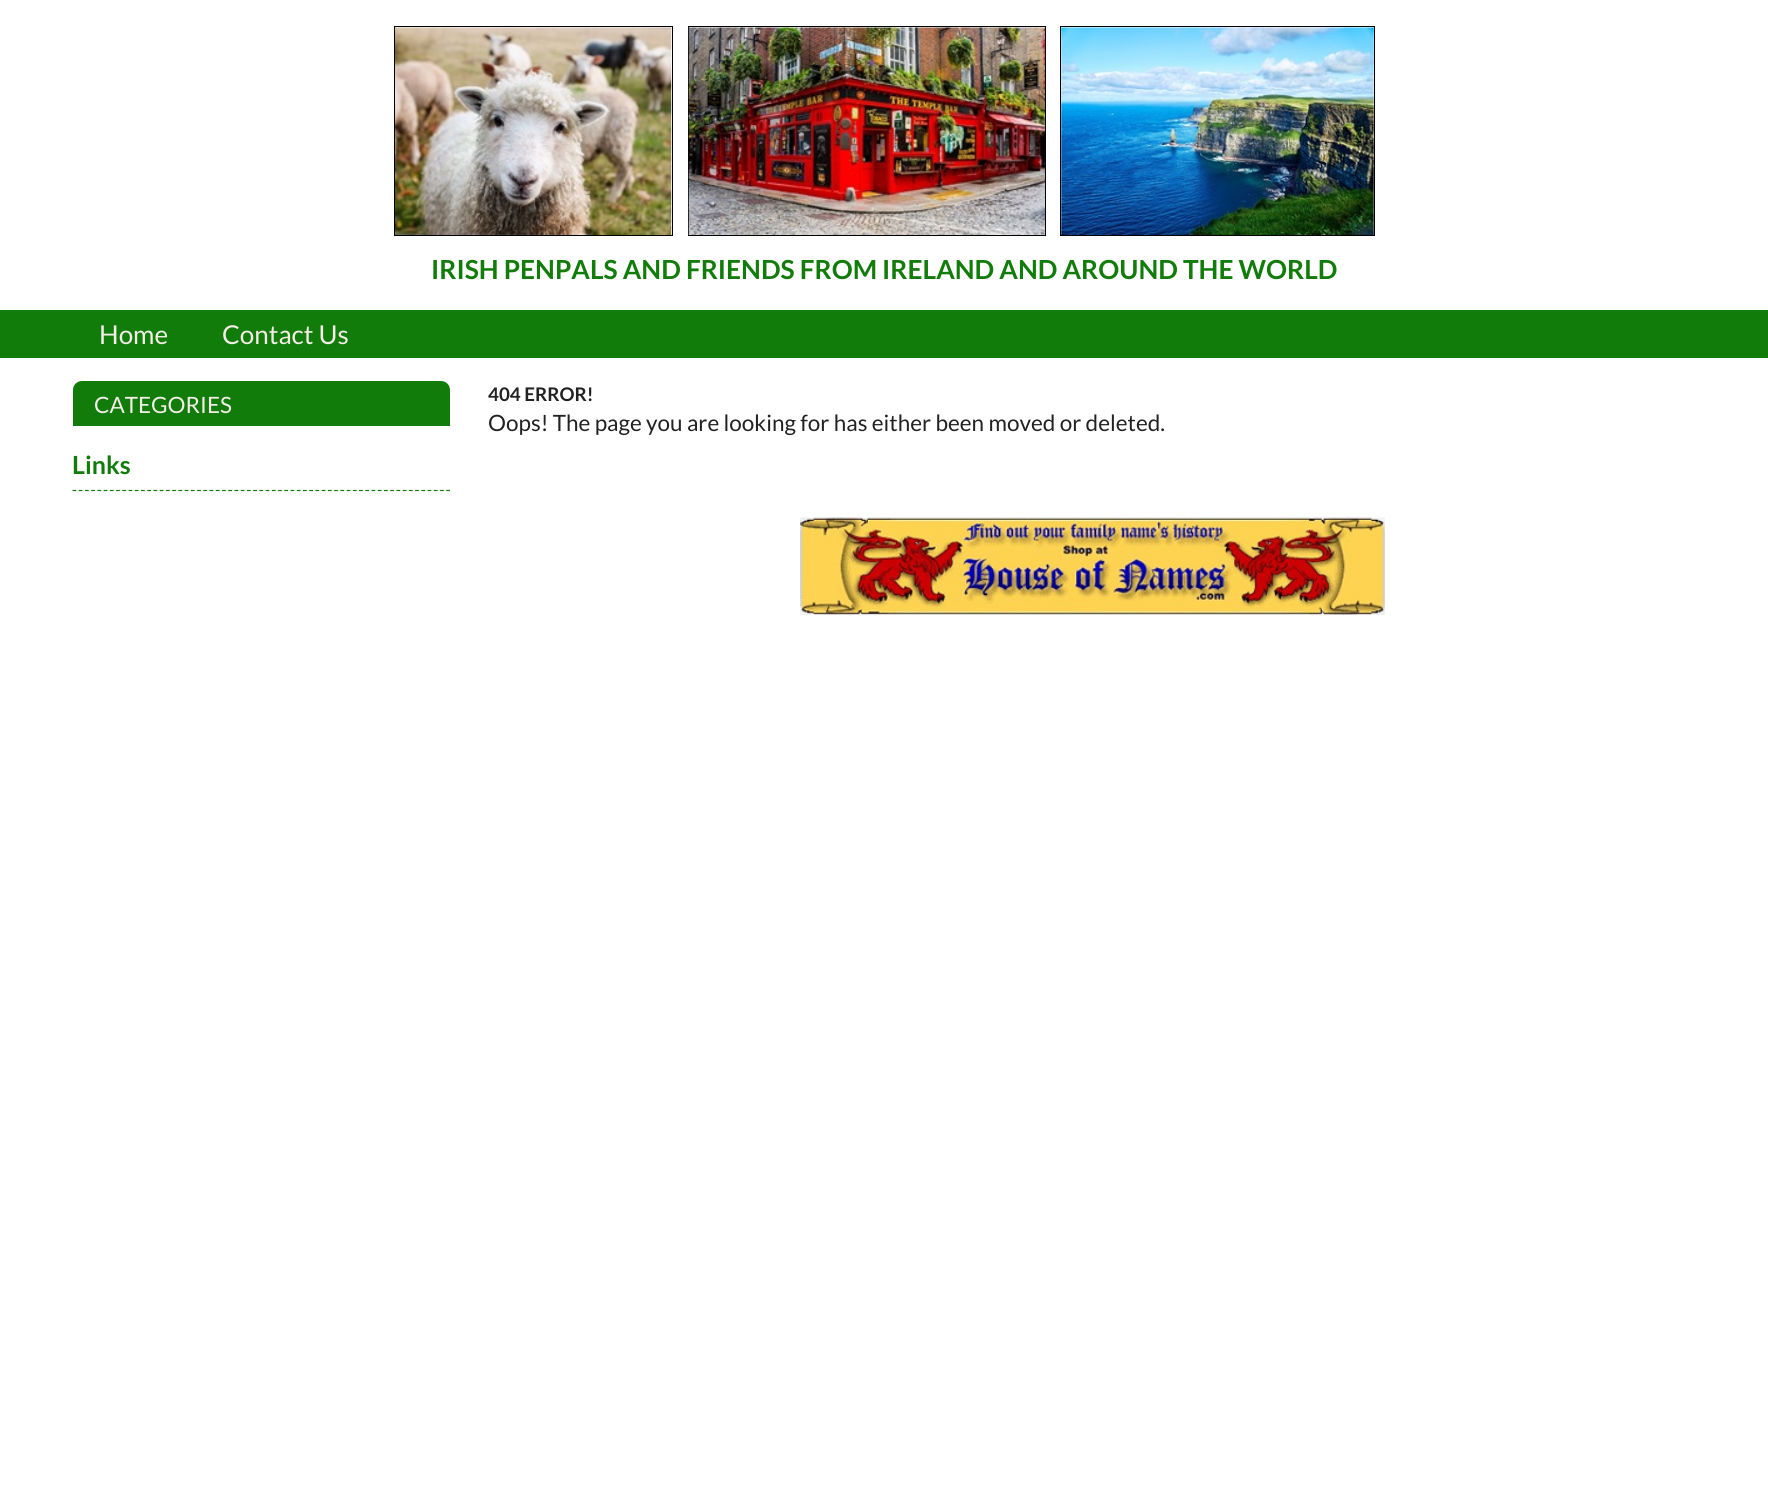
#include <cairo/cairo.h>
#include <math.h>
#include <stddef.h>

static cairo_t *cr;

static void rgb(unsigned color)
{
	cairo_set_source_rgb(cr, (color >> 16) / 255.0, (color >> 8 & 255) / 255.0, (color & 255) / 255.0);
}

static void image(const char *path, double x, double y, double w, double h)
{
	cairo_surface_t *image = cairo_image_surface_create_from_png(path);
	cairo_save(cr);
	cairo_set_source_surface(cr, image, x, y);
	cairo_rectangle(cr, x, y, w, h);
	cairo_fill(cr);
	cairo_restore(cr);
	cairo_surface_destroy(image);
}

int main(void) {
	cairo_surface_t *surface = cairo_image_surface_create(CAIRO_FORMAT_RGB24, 1768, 1495);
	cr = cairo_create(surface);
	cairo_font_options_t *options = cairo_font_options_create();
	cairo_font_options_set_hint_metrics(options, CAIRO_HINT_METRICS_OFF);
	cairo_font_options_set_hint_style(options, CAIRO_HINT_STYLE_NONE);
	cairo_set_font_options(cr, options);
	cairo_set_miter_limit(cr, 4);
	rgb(0xffffff);
	cairo_paint(cr);
	cairo_rectangle(cr, 394.5, 26.5, 278, 209);
	rgb(0x000000);
	cairo_set_line_width(cr, 1);
	cairo_stroke(cr);
	cairo_rectangle(cr, 688.5, 26.5, 357, 209);
	cairo_stroke(cr);
	cairo_rectangle(cr, 1060.5, 26.5, 314, 209);
	cairo_stroke(cr);
	image("img/1.png", 395, 27, 277, 208);
	image("img/2.png", 688, 27, 357, 208);
	image("img/3.png", 1061, 27, 313, 208);
	rgb(0x117c09);
	cairo_rectangle(cr, 0, 310, 1768, 48);
	cairo_fill(cr);
	cairo_new_path(cr);
	cairo_move_to(cr, 82, 381);
	cairo_line_to(cr, 441, 381);
	cairo_curve_to(cr, 446, 381, 450, 385, 450, 390);
	cairo_line_to(cr, 450, 426);
	cairo_line_to(cr, 73, 426);
	cairo_line_to(cr, 73, 390);
	cairo_curve_to(cr, 73, 385, 77, 381, 82, 381);
	cairo_close_path(cr);
	cairo_fill(cr);
	cairo_new_path(cr);
	cairo_move_to(cr, 72.5, 490.5);
	cairo_line_to(cr, 450, 490.5);
	cairo_set_line_width(cr, 1.2);
	cairo_set_dash(cr, (double[]){3.75, 2.48}, 2, 0);
	cairo_stroke(cr);
	image("img/4.png", 800, 517, 585, 98);
	cairo_select_font_face(cr, "Lato", CAIRO_FONT_SLANT_NORMAL, CAIRO_FONT_WEIGHT_BOLD);
	cairo_set_font_size(cr, 26.25);
	cairo_move_to(cr, 431, 279);
	cairo_show_text(cr, "IRISH PENPALS AND FRIENDS FROM IRELAND AND AROUND THE WORLD");
	cairo_select_font_face(cr, "Lato", CAIRO_FONT_SLANT_NORMAL, CAIRO_FONT_WEIGHT_NORMAL);
	cairo_set_font_size(cr, 26);
	rgb(0xf3ece7);
	cairo_move_to(cr, 99, 344);
	cairo_show_text(cr, "Home");
	cairo_move_to(cr, 222, 344);
	cairo_show_text(cr, "Contact Us");
	cairo_set_font_size(cr, 22.5);
	cairo_move_to(cr, 94, 413);
	cairo_show_text(cr, "CATEGORIES");
	cairo_select_font_face(cr, "Lato", CAIRO_FONT_SLANT_NORMAL, CAIRO_FONT_WEIGHT_BOLD);
	cairo_set_font_size(cr, 25);
	rgb(0x117c09);
	cairo_move_to(cr, 72, 474);
	cairo_show_text(cr, "Links");
	cairo_set_font_size(cr, 18.75);
	rgb(0x222222);
	cairo_move_to(cr, 488, 401);
	cairo_show_text(cr, "404 ERROR!");
	cairo_select_font_face(cr, "Lato", CAIRO_FONT_SLANT_NORMAL, CAIRO_FONT_WEIGHT_NORMAL);
	cairo_set_font_size(cr, 22.5);
	cairo_move_to(cr, 488, 431);
	cairo_show_text(cr, "Oops! The page you are looking for has either been moved or deleted.");
	cairo_surface_write_to_png(surface, "page.png");
	cairo_font_options_destroy(options);
	cairo_destroy(cr);
	cairo_surface_destroy(surface);
	return 0;
}
